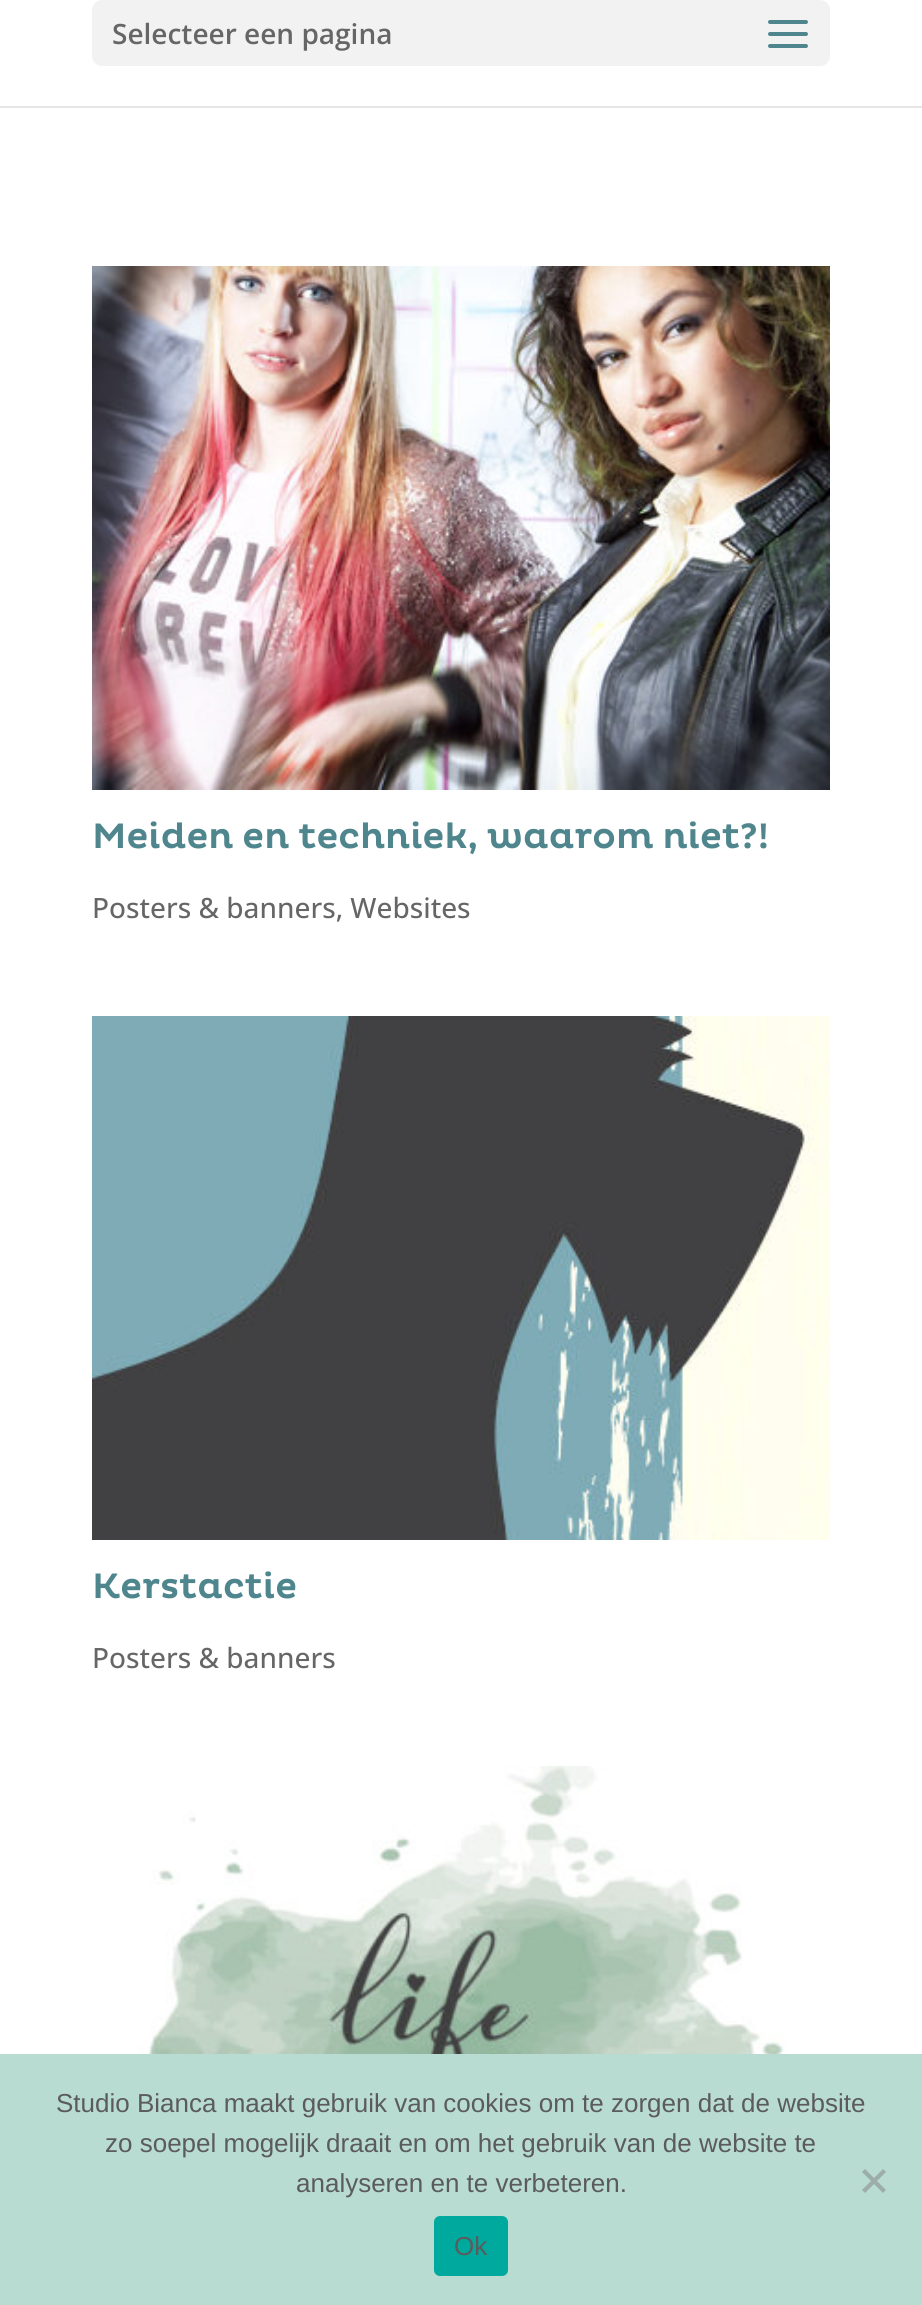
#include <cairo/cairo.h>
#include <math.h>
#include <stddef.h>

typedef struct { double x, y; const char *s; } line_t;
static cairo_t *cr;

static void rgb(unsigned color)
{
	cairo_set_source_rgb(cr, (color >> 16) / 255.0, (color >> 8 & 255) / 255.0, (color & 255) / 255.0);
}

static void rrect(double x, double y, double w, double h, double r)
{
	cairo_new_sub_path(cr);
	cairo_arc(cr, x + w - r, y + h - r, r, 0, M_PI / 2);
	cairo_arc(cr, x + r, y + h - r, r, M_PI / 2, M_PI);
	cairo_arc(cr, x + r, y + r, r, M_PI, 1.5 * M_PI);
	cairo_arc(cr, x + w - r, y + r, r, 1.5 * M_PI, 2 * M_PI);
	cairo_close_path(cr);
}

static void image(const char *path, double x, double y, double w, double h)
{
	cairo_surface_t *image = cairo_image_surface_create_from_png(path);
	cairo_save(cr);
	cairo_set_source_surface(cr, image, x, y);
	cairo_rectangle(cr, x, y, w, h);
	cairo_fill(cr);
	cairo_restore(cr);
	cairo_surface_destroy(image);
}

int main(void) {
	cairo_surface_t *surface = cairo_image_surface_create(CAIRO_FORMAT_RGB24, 922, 2305);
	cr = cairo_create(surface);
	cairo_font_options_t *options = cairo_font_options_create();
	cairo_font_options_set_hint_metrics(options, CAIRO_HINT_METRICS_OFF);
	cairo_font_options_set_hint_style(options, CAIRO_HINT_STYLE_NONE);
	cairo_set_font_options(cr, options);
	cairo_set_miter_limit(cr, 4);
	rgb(0xffffff);
	cairo_paint(cr);
	rgb(0xe6e6e6);
	cairo_rectangle(cr, 0, 106, 922, 2);
	cairo_fill(cr);
	rgb(0xf2f2f2);
	rrect(92, 0, 738, 66, 10);
	cairo_fill(cr);
	image("img/1.png", 768, 20, 40, 28);
	image("img/2.png", 92, 266, 738, 524);
	image("img/3.png", 92, 1016, 738, 524);
	image("img/4.png", 136, 1766, 649, 288);
	rgb(0xb9dcd2);
	cairo_rectangle(cr, 0, 2054, 922, 251);
	cairo_fill(cr);
	rgb(0x9daea9);
	cairo_new_path(cr);
	cairo_move_to(cr, 883, 2169);
	cairo_line_to(cr, 886, 2172);
	cairo_line_to(cr, 865, 2193);
	cairo_line_to(cr, 862, 2190);
	cairo_close_path(cr);
	cairo_fill(cr);
	cairo_new_path(cr);
	cairo_move_to(cr, 862, 2172);
	cairo_line_to(cr, 865, 2169);
	cairo_line_to(cr, 886, 2190);
	cairo_line_to(cr, 883, 2193);
	cairo_close_path(cr);
	cairo_fill(cr);
	rgb(0x00a99d);
	rrect(434, 2216, 74, 60, 6);
	cairo_fill(cr);
	cairo_select_font_face(cr, "Open Sans SemiBold", CAIRO_FONT_SLANT_NORMAL, CAIRO_FONT_WEIGHT_NORMAL);
	cairo_set_font_size(cr, 28);
	rgb(0x666666);
	cairo_move_to(cr, 112, 44);
	cairo_show_text(cr, "Selecteer een pagina");
	cairo_select_font_face(cr, "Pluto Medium", CAIRO_FONT_SLANT_NORMAL, CAIRO_FONT_WEIGHT_NORMAL);
	cairo_set_font_size(cr, 36);
	rgb(0x4f868e);
	cairo_move_to(cr, 92, 848);
	cairo_show_text(cr, "Meiden en techniek, waarom niet?!");
	cairo_select_font_face(cr, "Open Sans Medium", CAIRO_FONT_SLANT_NORMAL, CAIRO_FONT_WEIGHT_NORMAL);
	cairo_set_font_size(cr, 28);
	rgb(0x666666);
	cairo_move_to(cr, 92, 918);
	cairo_show_text(cr, "Posters & banners, Websites");
	cairo_select_font_face(cr, "Pluto Medium", CAIRO_FONT_SLANT_NORMAL, CAIRO_FONT_WEIGHT_NORMAL);
	cairo_set_font_size(cr, 36);
	rgb(0x4f868e);
	cairo_move_to(cr, 92, 1598);
	cairo_show_text(cr, "Kerstactie");
	cairo_select_font_face(cr, "Open Sans Medium", CAIRO_FONT_SLANT_NORMAL, CAIRO_FONT_WEIGHT_NORMAL);
	cairo_set_font_size(cr, 28);
	rgb(0x666666);
	cairo_move_to(cr, 92, 1668);
	cairo_show_text(cr, "Posters & banners");
	cairo_select_font_face(cr, "Liberation Sans", CAIRO_FONT_SLANT_NORMAL, CAIRO_FONT_WEIGHT_NORMAL);
	cairo_set_font_size(cr, 26);
	rgb(0x5b5b5b);
	{
		static const line_t items[] = {
			{56, 2112, "Studio Bianca maakt gebruik van cookies om te zorgen dat de website"},
			{105, 2152, "zo soepel mogelijk draait en om het gebruik van de website te"},
			{296, 2192, "analyseren en te verbeteren."},
			{454, 2255, "Ok"},
		};
		for (size_t i = 0; i < sizeof items / sizeof *items; i++) {
			cairo_move_to(cr, items[i].x, items[i].y);
			cairo_show_text(cr, items[i].s);
		}
	}
	cairo_surface_write_to_png(surface, "page.png");
	cairo_font_options_destroy(options);
	cairo_destroy(cr);
	cairo_surface_destroy(surface);
	return 0;
}
